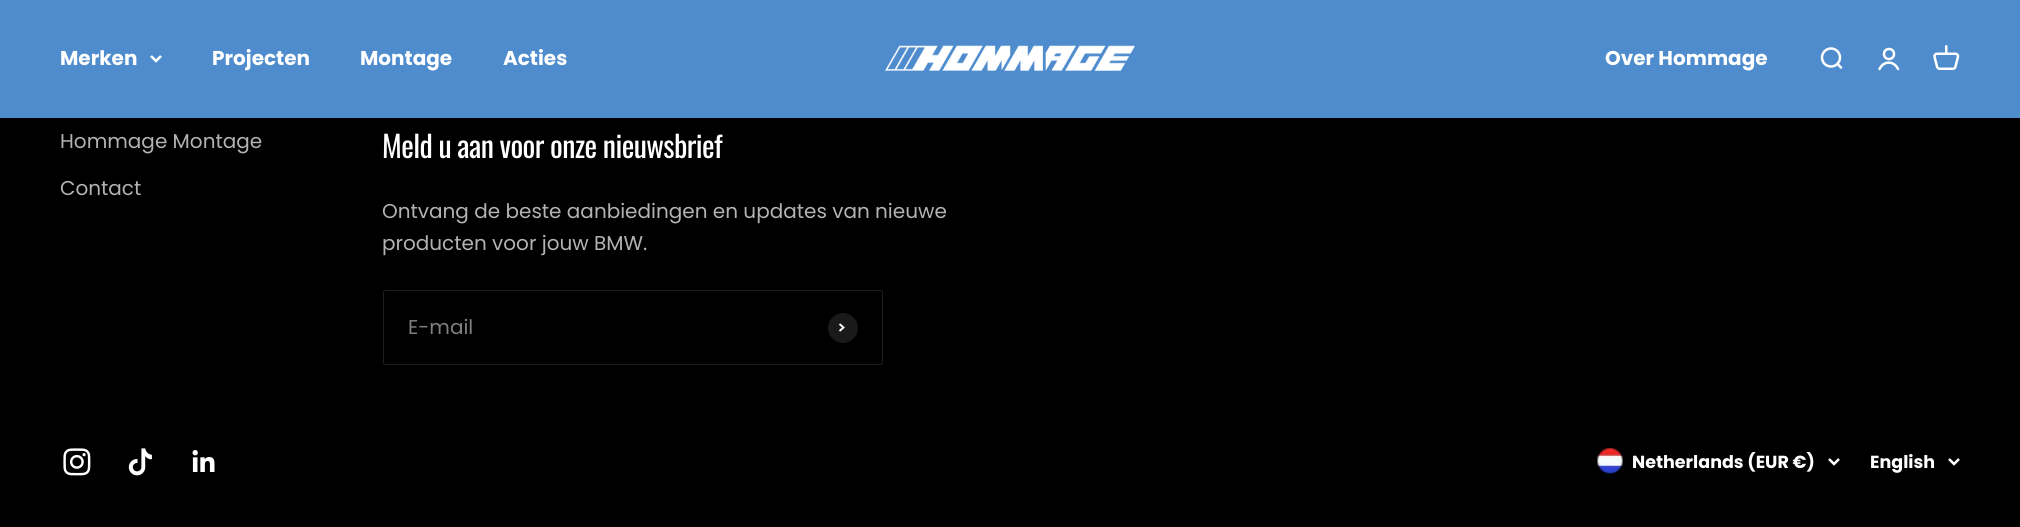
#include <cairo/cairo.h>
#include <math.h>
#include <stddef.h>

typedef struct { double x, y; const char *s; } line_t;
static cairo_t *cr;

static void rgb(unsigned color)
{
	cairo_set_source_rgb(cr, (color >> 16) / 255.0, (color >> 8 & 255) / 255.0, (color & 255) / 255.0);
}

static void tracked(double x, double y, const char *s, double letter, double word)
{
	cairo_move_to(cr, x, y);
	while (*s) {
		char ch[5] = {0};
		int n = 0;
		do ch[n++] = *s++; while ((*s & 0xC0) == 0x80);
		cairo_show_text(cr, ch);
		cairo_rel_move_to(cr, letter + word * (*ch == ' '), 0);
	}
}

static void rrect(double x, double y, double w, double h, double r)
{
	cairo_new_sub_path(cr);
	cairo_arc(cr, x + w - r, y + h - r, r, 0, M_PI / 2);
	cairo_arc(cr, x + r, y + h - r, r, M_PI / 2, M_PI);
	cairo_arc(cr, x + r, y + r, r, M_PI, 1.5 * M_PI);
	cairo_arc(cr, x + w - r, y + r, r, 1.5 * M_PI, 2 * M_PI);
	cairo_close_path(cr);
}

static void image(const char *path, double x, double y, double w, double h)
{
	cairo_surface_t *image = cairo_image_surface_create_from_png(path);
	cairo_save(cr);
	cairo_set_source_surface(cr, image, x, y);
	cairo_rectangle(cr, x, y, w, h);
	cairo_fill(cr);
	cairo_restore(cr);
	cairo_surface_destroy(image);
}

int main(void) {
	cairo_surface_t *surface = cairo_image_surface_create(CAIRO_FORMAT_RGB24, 2020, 527);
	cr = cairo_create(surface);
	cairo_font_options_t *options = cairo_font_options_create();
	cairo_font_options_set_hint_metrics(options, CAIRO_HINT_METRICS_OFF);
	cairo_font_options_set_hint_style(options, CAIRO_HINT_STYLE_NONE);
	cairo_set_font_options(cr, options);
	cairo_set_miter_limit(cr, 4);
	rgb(0x000000);
	cairo_paint(cr);
	rgb(0x4e8ccd);
	cairo_rectangle(cr, 0, 0, 2020, 118);
	cairo_fill(cr);
	cairo_new_path(cr);
	cairo_move_to(cr, 151, 56);
	cairo_line_to(cr, 156, 61);
	cairo_line_to(cr, 161, 56);
	rgb(0xffffff);
	cairo_set_line_width(cr, 2.5);
	cairo_stroke(cr);
	image("img/1.png", 885, 45, 250, 26);
	cairo_arc(cr, 1831, 57.5, 9, 0, 2 * M_PI);
	cairo_stroke(cr);
	cairo_new_path(cr);
	cairo_move_to(cr, 1837.5, 64);
	cairo_line_to(cr, 1841, 67.5);
	cairo_set_line_cap(cr, CAIRO_LINE_CAP_ROUND);
	cairo_set_line_join(cr, CAIRO_LINE_JOIN_ROUND);
	cairo_stroke(cr);
	cairo_arc(cr, 1889, 54, 5, 0, 2 * M_PI);
	cairo_set_line_cap(cr, CAIRO_LINE_CAP_BUTT);
	cairo_set_line_join(cr, CAIRO_LINE_JOIN_MITER);
	cairo_stroke(cr);
	cairo_new_path(cr);
	cairo_move_to(cr, 1879.5, 69);
	cairo_curve_to(cr, 1883.5, 60.5, 1894, 60.5, 1898, 69);
	cairo_set_line_cap(cr, CAIRO_LINE_CAP_ROUND);
	cairo_stroke(cr);
	image("img/2.png", 1933, 45, 27, 25);
	rrect(383.5, 290.5, 499, 74, 2);
	rgb(0x1f1f1f);
	cairo_set_line_width(cr, 1);
	cairo_set_line_cap(cr, CAIRO_LINE_CAP_BUTT);
	cairo_stroke(cr);
	rgb(0x1a1a1a);
	cairo_arc(cr, 843, 328, 15, 0, 2 * M_PI);
	cairo_fill(cr);
	cairo_new_path(cr);
	cairo_move_to(cr, 839.5, 331);
	cairo_line_to(cr, 843.5, 327.5);
	cairo_line_to(cr, 839.5, 324);
	rgb(0xffffff);
	cairo_set_line_width(cr, 1.9);
	cairo_stroke(cr);
	image("img/3.png", 63, 448, 28, 28);
	image("img/4.png", 128, 448, 24, 28);
	image("img/5.png", 192, 450, 23, 22);
	image("img/6.png", 1597, 448, 26, 26);
	cairo_new_path(cr);
	cairo_move_to(cr, 1829, 459);
	cairo_line_to(cr, 1834, 464);
	cairo_line_to(cr, 1839, 459);
	cairo_set_line_width(cr, 2.5);
	cairo_stroke(cr);
	cairo_new_path(cr);
	cairo_move_to(cr, 1949, 459);
	cairo_line_to(cr, 1954, 464);
	cairo_line_to(cr, 1959, 459);
	cairo_stroke(cr);
	cairo_select_font_face(cr, "Poppins", CAIRO_FONT_SLANT_NORMAL, CAIRO_FONT_WEIGHT_BOLD);
	cairo_set_font_size(cr, 20);
	{
		static const line_t items[] = {
			{60, 65, "Merken"},
			{212, 65, "Projecten"},
			{360, 65, "Montage"},
			{503, 65, "Acties"},
			{1605, 65, "Over Hommage"},
		};
		for (size_t i = 0; i < sizeof items / sizeof *items; i++) {
			cairo_move_to(cr, items[i].x, items[i].y);
			cairo_show_text(cr, items[i].s);
		}
	}
	cairo_select_font_face(cr, "Poppins", CAIRO_FONT_SLANT_NORMAL, CAIRO_FONT_WEIGHT_NORMAL);
	rgb(0xb3b3b3);
	cairo_move_to(cr, 60, 148);
	cairo_show_text(cr, "Hommage Montage");
	cairo_move_to(cr, 60, 195);
	cairo_show_text(cr, "Contact");
	cairo_select_font_face(cr, "Oswald", CAIRO_FONT_SLANT_NORMAL, CAIRO_FONT_WEIGHT_NORMAL);
	cairo_set_font_size(cr, 30);
	rgb(0xffffff);
	tracked(382, 158, "Meld u aan voor onze nieuwsbrief", -0.6, 0);
	cairo_select_font_face(cr, "Poppins", CAIRO_FONT_SLANT_NORMAL, CAIRO_FONT_WEIGHT_NORMAL);
	cairo_set_font_size(cr, 20);
	rgb(0xb3b3b3);
	cairo_move_to(cr, 382, 218);
	cairo_show_text(cr, "Ontvang de beste aanbiedingen en updates van nieuwe");
	cairo_move_to(cr, 382, 250);
	cairo_show_text(cr, "producten voor jouw BMW.");
	rgb(0x808080);
	cairo_move_to(cr, 408, 334);
	cairo_show_text(cr, "E-mail");
	cairo_select_font_face(cr, "Poppins", CAIRO_FONT_SLANT_NORMAL, CAIRO_FONT_WEIGHT_BOLD);
	cairo_set_font_size(cr, 17.5);
	rgb(0xffffff);
	cairo_move_to(cr, 1632, 468);
	cairo_show_text(cr, "Netherlands (EUR €)");
	cairo_move_to(cr, 1870, 468);
	cairo_show_text(cr, "English");
	cairo_surface_write_to_png(surface, "page.png");
	cairo_font_options_destroy(options);
	cairo_destroy(cr);
	cairo_surface_destroy(surface);
	return 0;
}
